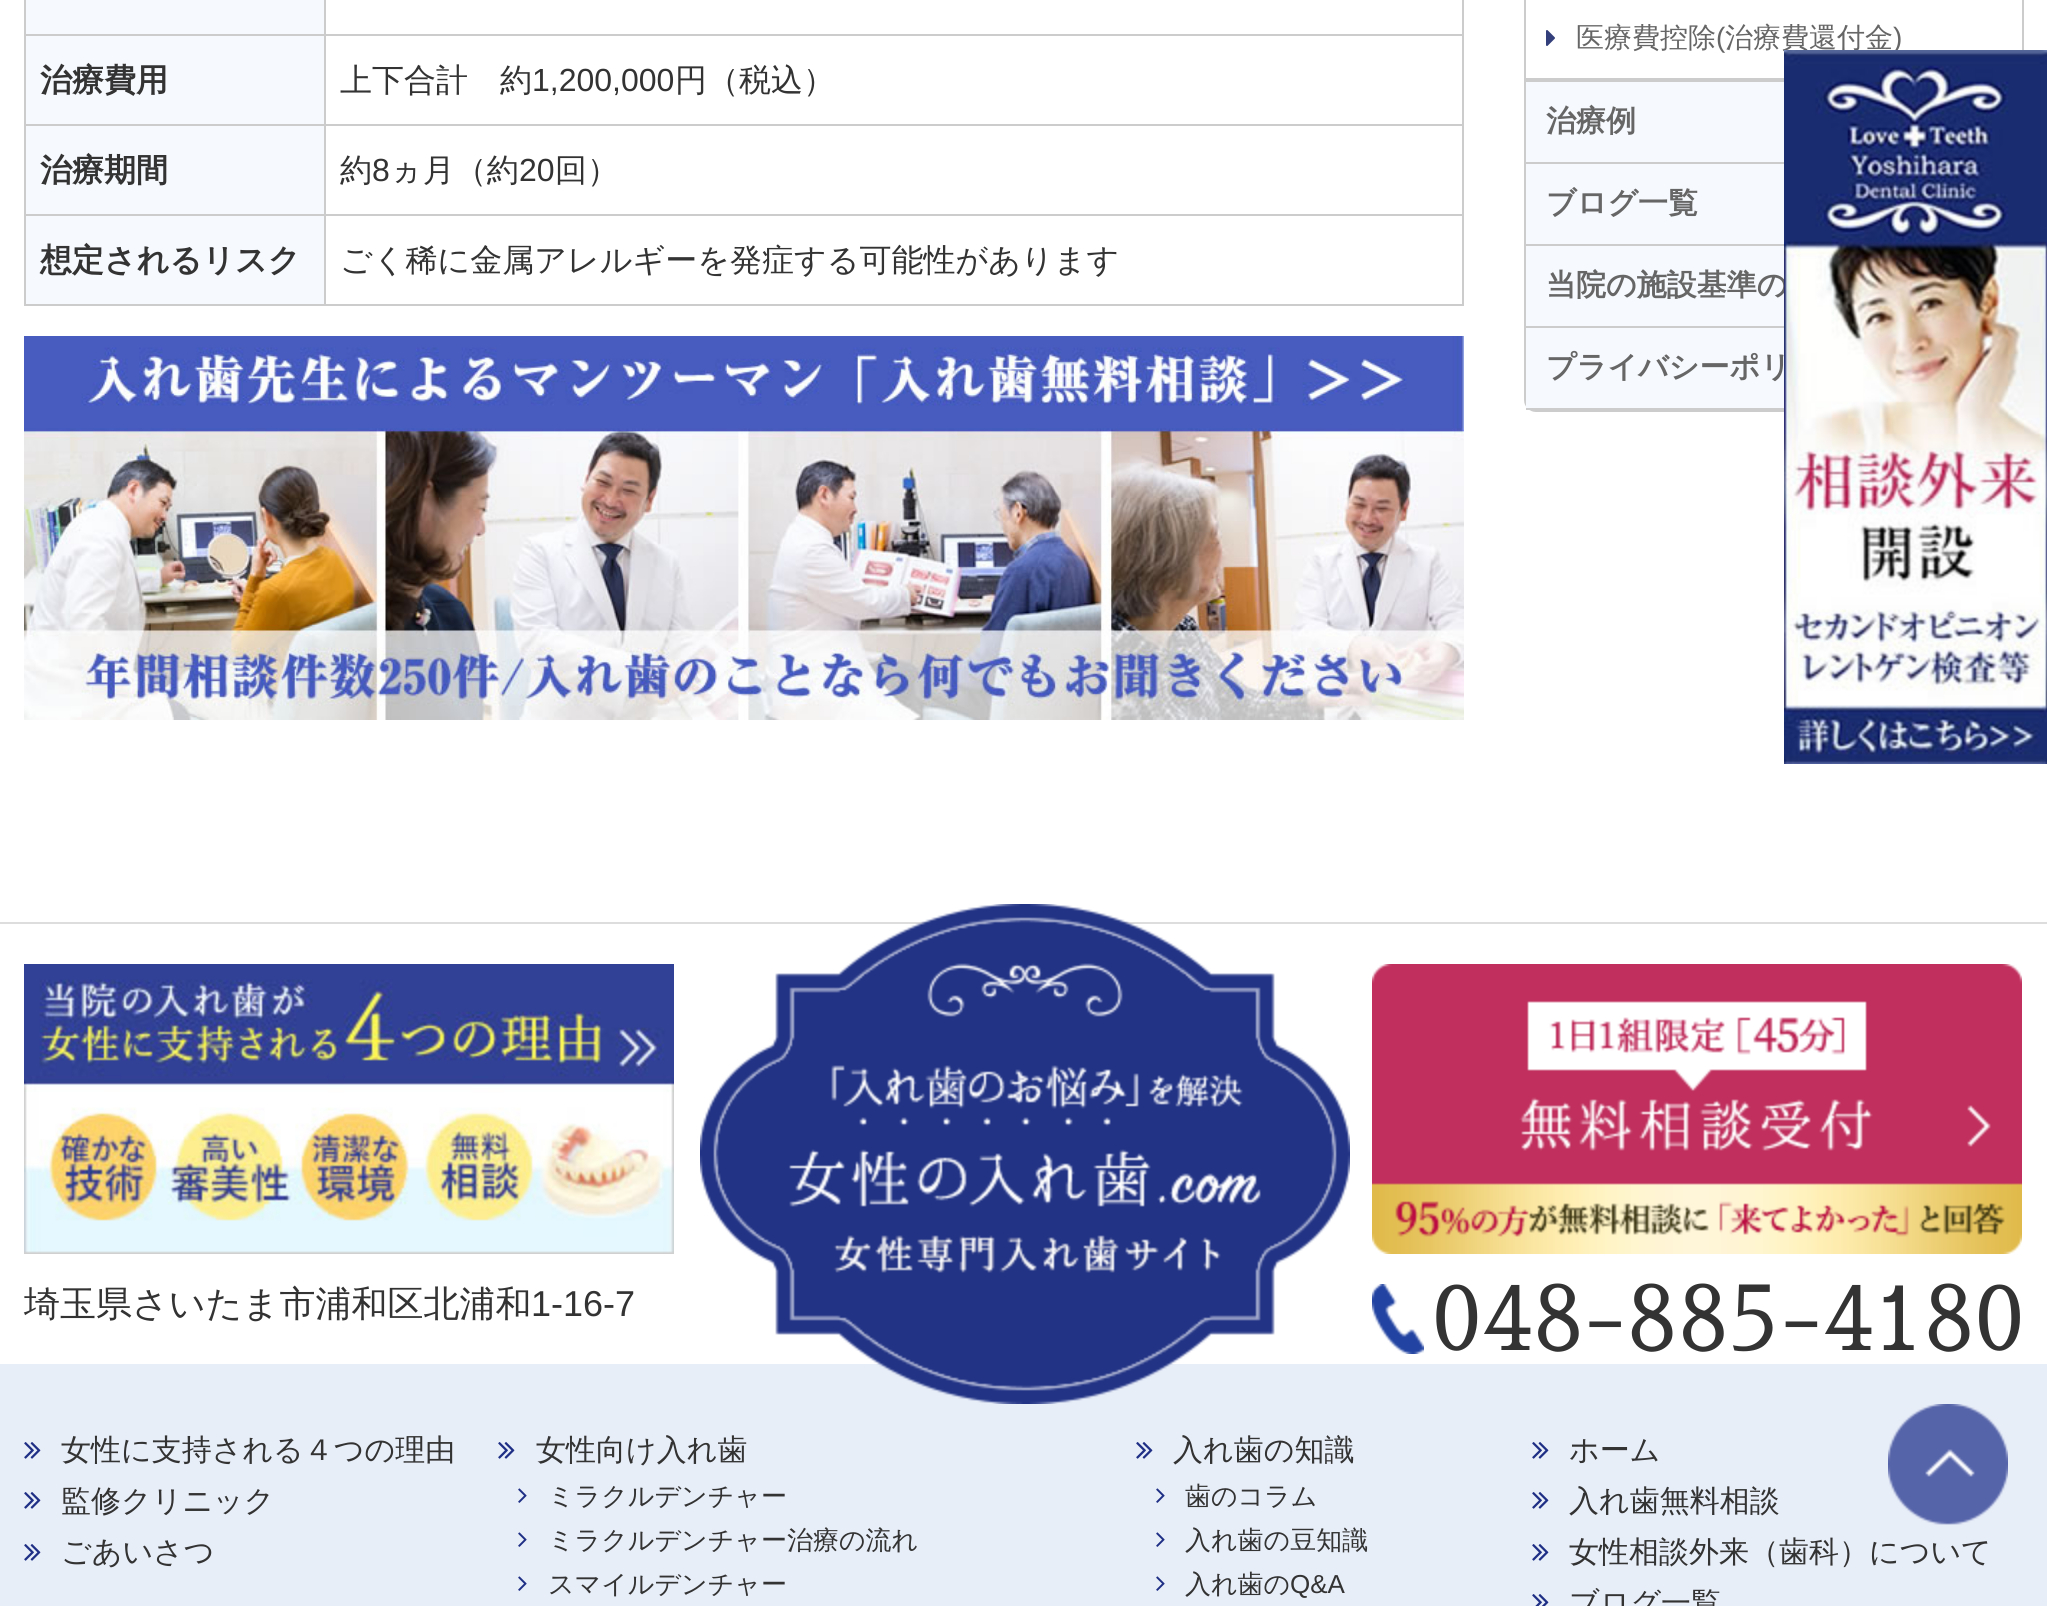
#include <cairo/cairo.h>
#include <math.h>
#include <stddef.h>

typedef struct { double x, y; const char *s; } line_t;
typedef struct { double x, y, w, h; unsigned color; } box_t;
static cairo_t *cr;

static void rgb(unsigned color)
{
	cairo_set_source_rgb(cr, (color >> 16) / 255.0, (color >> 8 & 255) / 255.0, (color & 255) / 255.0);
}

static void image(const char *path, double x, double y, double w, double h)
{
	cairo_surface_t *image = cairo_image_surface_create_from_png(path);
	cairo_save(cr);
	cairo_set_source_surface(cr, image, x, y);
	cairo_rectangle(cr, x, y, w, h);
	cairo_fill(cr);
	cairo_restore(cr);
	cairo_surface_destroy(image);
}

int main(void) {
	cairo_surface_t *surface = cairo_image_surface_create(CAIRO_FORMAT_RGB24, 2047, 1606);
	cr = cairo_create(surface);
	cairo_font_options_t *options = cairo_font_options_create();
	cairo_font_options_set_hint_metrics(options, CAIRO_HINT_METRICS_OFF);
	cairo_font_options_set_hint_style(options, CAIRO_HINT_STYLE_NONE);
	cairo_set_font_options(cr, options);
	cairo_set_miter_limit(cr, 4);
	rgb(0xffffff);
	cairo_paint(cr);
	{
		static const box_t items[] = {
			{26, 0, 298, 34, 0xf6f9fd},
			{324, 34, 1140, 2, 0xcccccc},
			{324, 124, 1140, 2, 0xcccccc},
			{324, 214, 1140, 2, 0xcccccc},
			{1462, 214, 2, 92, 0xcccccc},
			{324, 304, 1140, 2, 0xcccccc},
			{324, 214, 2, 92, 0xcccccc},
			{24, 214, 302, 2, 0xcccccc},
			{324, 124, 2, 92, 0xcccccc},
			{24, 124, 302, 2, 0xcccccc},
			{324, 34, 2, 92, 0xcccccc},
			{24, 34, 302, 2, 0xcccccc},
			{324, 0, 2, 36, 0xcccccc},
			{26, 36, 298, 88, 0xf6f9fd},
			{24, 304, 302, 2, 0xcccccc},
			{24, 214, 2, 92, 0xcccccc},
			{24, 124, 2, 92, 0xcccccc},
			{24, 0, 2, 126, 0xcccccc},
			{1462, 124, 2, 92, 0xcccccc},
			{1462, 0, 2, 126, 0xcccccc},
			{26, 126, 298, 88, 0xf6f9fd},
			{26, 216, 298, 88, 0xf6f9fd},
		};
		for (size_t i = 0; i < sizeof items / sizeof *items; i++) {
			rgb(items[i].color);
			cairo_rectangle(cr, items[i].x, items[i].y, items[i].w, items[i].h);
			cairo_fill(cr);
		}
	}
	image("img/1.png", 24, 336, 1440, 384);
	cairo_new_path(cr);
	cairo_move_to(cr, 1525, -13);
	cairo_line_to(cr, 2023, -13);
	cairo_line_to(cr, 2023, 400);
	cairo_curve_to(cr, 2023, 406, 2018, 411, 2012, 411);
	cairo_line_to(cr, 1536, 411);
	cairo_curve_to(cr, 1530, 411, 1525, 406, 1525, 400);
	cairo_close_path(cr);
	rgb(0xcccccc);
	cairo_stroke(cr);
	cairo_rectangle(cr, 1526, 78, 258, 4);
	cairo_fill(cr);
	image("img/2.png", 1546, 30, 9, 16);
	{
		static const box_t items[] = {
			{1526, 82, 258, 80, 0xf6f9fd},
			{1526, 162, 258, 2, 0xcccccc},
			{1526, 164, 258, 80, 0xf6f9fd},
			{1526, 244, 258, 2, 0xcccccc},
			{1526, 246, 258, 80, 0xf6f9fd},
			{1526, 326, 258, 2, 0xcccccc},
			{1526, 328, 258, 80, 0xf6f9fd},
			{1526, 408, 258, 2, 0xcccccc},
			{0, 922, 2047, 2, 0xdddddd},
			{0, 1364, 2047, 242, 0xe8eef8},
		};
		for (size_t i = 0; i < sizeof items / sizeof *items; i++) {
			rgb(items[i].color);
			cairo_rectangle(cr, items[i].x, items[i].y, items[i].w, items[i].h);
			cairo_fill(cr);
		}
	}
	image("img/4.png", 700, 904, 650, 500);
	image("img/5.png", 24, 964, 650, 290);
	image("img/6.png", 1372, 964, 650, 290);
	image("img/7.png", 1372, 1284, 52, 70);
	image("img/8.png", 24, 1442, 17, 17);
	image("img/8.png", 24, 1492, 17, 17);
	image("img/8.png", 24, 1544, 17, 17);
	image("img/8.png", 498, 1442, 17, 17);
	image("img/9.png", 518, 1488, 9, 15);
	image("img/9.png", 518, 1532, 9, 15);
	image("img/9.png", 518, 1576, 9, 15);
	image("img/8.png", 1136, 1442, 17, 17);
	image("img/9.png", 1156, 1488, 9, 15);
	image("img/9.png", 1156, 1532, 9, 15);
	image("img/9.png", 1156, 1576, 9, 15);
	image("img/8.png", 1532, 1442, 17, 17);
	image("img/8.png", 1532, 1492, 17, 17);
	image("img/8.png", 1532, 1544, 17, 17);
	image("img/10.png", 1532, 1594, 17, 12);
	image("img/11.png", 1888, 1404, 120, 121);
	cairo_select_font_face(cr, "WenQuanYi Zen Hei", CAIRO_FONT_SLANT_NORMAL, CAIRO_FONT_WEIGHT_BOLD);
	cairo_set_font_size(cr, 32);
	rgb(0x333333);
	cairo_move_to(cr, 40, 91);
	cairo_show_text(cr, "治療費用");
	cairo_select_font_face(cr, "WenQuanYi Zen Hei Medium", CAIRO_FONT_SLANT_NORMAL, CAIRO_FONT_WEIGHT_NORMAL);
	cairo_move_to(cr, 340, 91);
	cairo_show_text(cr, "上下合計　約");
	cairo_select_font_face(cr, "Liberation Sans", CAIRO_FONT_SLANT_NORMAL, CAIRO_FONT_WEIGHT_NORMAL);
	cairo_move_to(cr, 532, 91);
	cairo_show_text(cr, "1,200,000");
	cairo_select_font_face(cr, "WenQuanYi Zen Hei Medium", CAIRO_FONT_SLANT_NORMAL, CAIRO_FONT_WEIGHT_NORMAL);
	cairo_move_to(cr, 675, 91);
	cairo_show_text(cr, "円（税込）");
	cairo_select_font_face(cr, "WenQuanYi Zen Hei", CAIRO_FONT_SLANT_NORMAL, CAIRO_FONT_WEIGHT_BOLD);
	cairo_move_to(cr, 40, 181);
	cairo_show_text(cr, "治療期間");
	cairo_select_font_face(cr, "WenQuanYi Zen Hei Medium", CAIRO_FONT_SLANT_NORMAL, CAIRO_FONT_WEIGHT_NORMAL);
	cairo_move_to(cr, 340, 181);
	cairo_show_text(cr, "約");
	cairo_select_font_face(cr, "Liberation Sans", CAIRO_FONT_SLANT_NORMAL, CAIRO_FONT_WEIGHT_NORMAL);
	cairo_move_to(cr, 372, 181);
	cairo_show_text(cr, "8");
	cairo_select_font_face(cr, "WenQuanYi Zen Hei Medium", CAIRO_FONT_SLANT_NORMAL, CAIRO_FONT_WEIGHT_NORMAL);
	cairo_move_to(cr, 390, 181);
	cairo_show_text(cr, "ヵ月（約");
	cairo_select_font_face(cr, "Liberation Sans", CAIRO_FONT_SLANT_NORMAL, CAIRO_FONT_WEIGHT_NORMAL);
	cairo_move_to(cr, 519, 181);
	cairo_show_text(cr, "20");
	cairo_select_font_face(cr, "WenQuanYi Zen Hei Medium", CAIRO_FONT_SLANT_NORMAL, CAIRO_FONT_WEIGHT_NORMAL);
	cairo_move_to(cr, 555, 181);
	cairo_show_text(cr, "回）");
	cairo_select_font_face(cr, "WenQuanYi Zen Hei", CAIRO_FONT_SLANT_NORMAL, CAIRO_FONT_WEIGHT_BOLD);
	cairo_move_to(cr, 40, 271);
	cairo_show_text(cr, "想定されるリスク");
	cairo_select_font_face(cr, "WenQuanYi Zen Hei Medium", CAIRO_FONT_SLANT_NORMAL, CAIRO_FONT_WEIGHT_NORMAL);
	cairo_move_to(cr, 340, 271);
	cairo_show_text(cr, "ごく稀に金属アレルギーを発症する可能性があります");
	cairo_set_font_size(cr, 28);
	rgb(0x666666);
	cairo_move_to(cr, 1576, 47);
	cairo_show_text(cr, "医療費控除");
	cairo_select_font_face(cr, "Liberation Sans", CAIRO_FONT_SLANT_NORMAL, CAIRO_FONT_WEIGHT_NORMAL);
	cairo_move_to(cr, 1716, 47);
	cairo_show_text(cr, "(");
	cairo_select_font_face(cr, "WenQuanYi Zen Hei Medium", CAIRO_FONT_SLANT_NORMAL, CAIRO_FONT_WEIGHT_NORMAL);
	cairo_move_to(cr, 1725, 47);
	cairo_show_text(cr, "治療費還付金");
	cairo_select_font_face(cr, "Liberation Sans", CAIRO_FONT_SLANT_NORMAL, CAIRO_FONT_WEIGHT_NORMAL);
	cairo_move_to(cr, 1893, 47);
	cairo_show_text(cr, ")");
	cairo_select_font_face(cr, "WenQuanYi Zen Hei", CAIRO_FONT_SLANT_NORMAL, CAIRO_FONT_WEIGHT_BOLD);
	cairo_set_font_size(cr, 30);
	{
		static const line_t items[] = {
			{1546, 131, "治療例"},
			{1546, 213, "ブログ一覧"},
			{1546, 295, "当院の施設基準の"},
			{1546, 377, "プライバシーポリ"},
		};
		for (size_t i = 0; i < sizeof items / sizeof *items; i++) {
			cairo_move_to(cr, items[i].x, items[i].y);
			cairo_show_text(cr, items[i].s);
		}
	}
	image("img/3.png", 1784, 50, 263, 714);
	cairo_select_font_face(cr, "WenQuanYi Zen Hei Medium", CAIRO_FONT_SLANT_NORMAL, CAIRO_FONT_WEIGHT_NORMAL);
	cairo_set_font_size(cr, 36);
	rgb(0x333333);
	cairo_move_to(cr, 24, 1316);
	cairo_show_text(cr, "埼玉県さいたま市浦和区北浦和");
	cairo_select_font_face(cr, "Liberation Sans", CAIRO_FONT_SLANT_NORMAL, CAIRO_FONT_WEIGHT_NORMAL);
	cairo_move_to(cr, 531, 1316);
	cairo_show_text(cr, "1-16-7");
	cairo_select_font_face(cr, "Sawarabi Mincho", CAIRO_FONT_SLANT_NORMAL, CAIRO_FONT_WEIGHT_NORMAL);
	cairo_set_font_size(cr, 90);
	cairo_move_to(cr, 1432, 1350);
	cairo_show_text(cr, "048-885-4180");
	cairo_select_font_face(cr, "WenQuanYi Zen Hei Medium", CAIRO_FONT_SLANT_NORMAL, CAIRO_FONT_WEIGHT_NORMAL);
	cairo_set_font_size(cr, 30);
	{
		static const line_t items[] = {
			{61, 1460, "女性に支持される４つの理由"},
			{61, 1511, "監修クリニック"},
			{61, 1562, "ごあいさつ"},
			{536, 1460, "女性向け入れ歯"},
		};
		for (size_t i = 0; i < sizeof items / sizeof *items; i++) {
			cairo_move_to(cr, items[i].x, items[i].y);
			cairo_show_text(cr, items[i].s);
		}
	}
	cairo_set_font_size(cr, 26);
	{
		static const line_t items[] = {
			{548, 1505, "ミラクルデンチャー"},
			{548, 1549, "ミラクルデンチャー治療の流れ"},
			{548, 1593, "スマイルデンチャー"},
		};
		for (size_t i = 0; i < sizeof items / sizeof *items; i++) {
			cairo_move_to(cr, items[i].x, items[i].y);
			cairo_show_text(cr, items[i].s);
		}
	}
	cairo_set_font_size(cr, 30);
	cairo_move_to(cr, 1173, 1460);
	cairo_show_text(cr, "入れ歯の知識");
	cairo_set_font_size(cr, 26);
	{
		static const line_t items[] = {
			{1185, 1505, "歯のコラム"},
			{1185, 1549, "入れ歯の豆知識"},
			{1185, 1593, "入れ歯の"},
		};
		for (size_t i = 0; i < sizeof items / sizeof *items; i++) {
			cairo_move_to(cr, items[i].x, items[i].y);
			cairo_show_text(cr, items[i].s);
		}
	}
	cairo_select_font_face(cr, "Liberation Sans", CAIRO_FONT_SLANT_NORMAL, CAIRO_FONT_WEIGHT_NORMAL);
	cairo_move_to(cr, 1290, 1593);
	cairo_show_text(cr, "Q&A");
	cairo_select_font_face(cr, "WenQuanYi Zen Hei Medium", CAIRO_FONT_SLANT_NORMAL, CAIRO_FONT_WEIGHT_NORMAL);
	cairo_set_font_size(cr, 30);
	{
		static const line_t items[] = {
			{1569, 1460, "ホーム"},
			{1569, 1511, "入れ歯無料相談"},
			{1569, 1562, "女性相談外来（歯科）について"},
			{1569, 1613, "ブログ一覧"},
		};
		for (size_t i = 0; i < sizeof items / sizeof *items; i++) {
			cairo_move_to(cr, items[i].x, items[i].y);
			cairo_show_text(cr, items[i].s);
		}
	}
	cairo_surface_write_to_png(surface, "page.png");
	cairo_font_options_destroy(options);
	cairo_destroy(cr);
	cairo_surface_destroy(surface);
	return 0;
}
